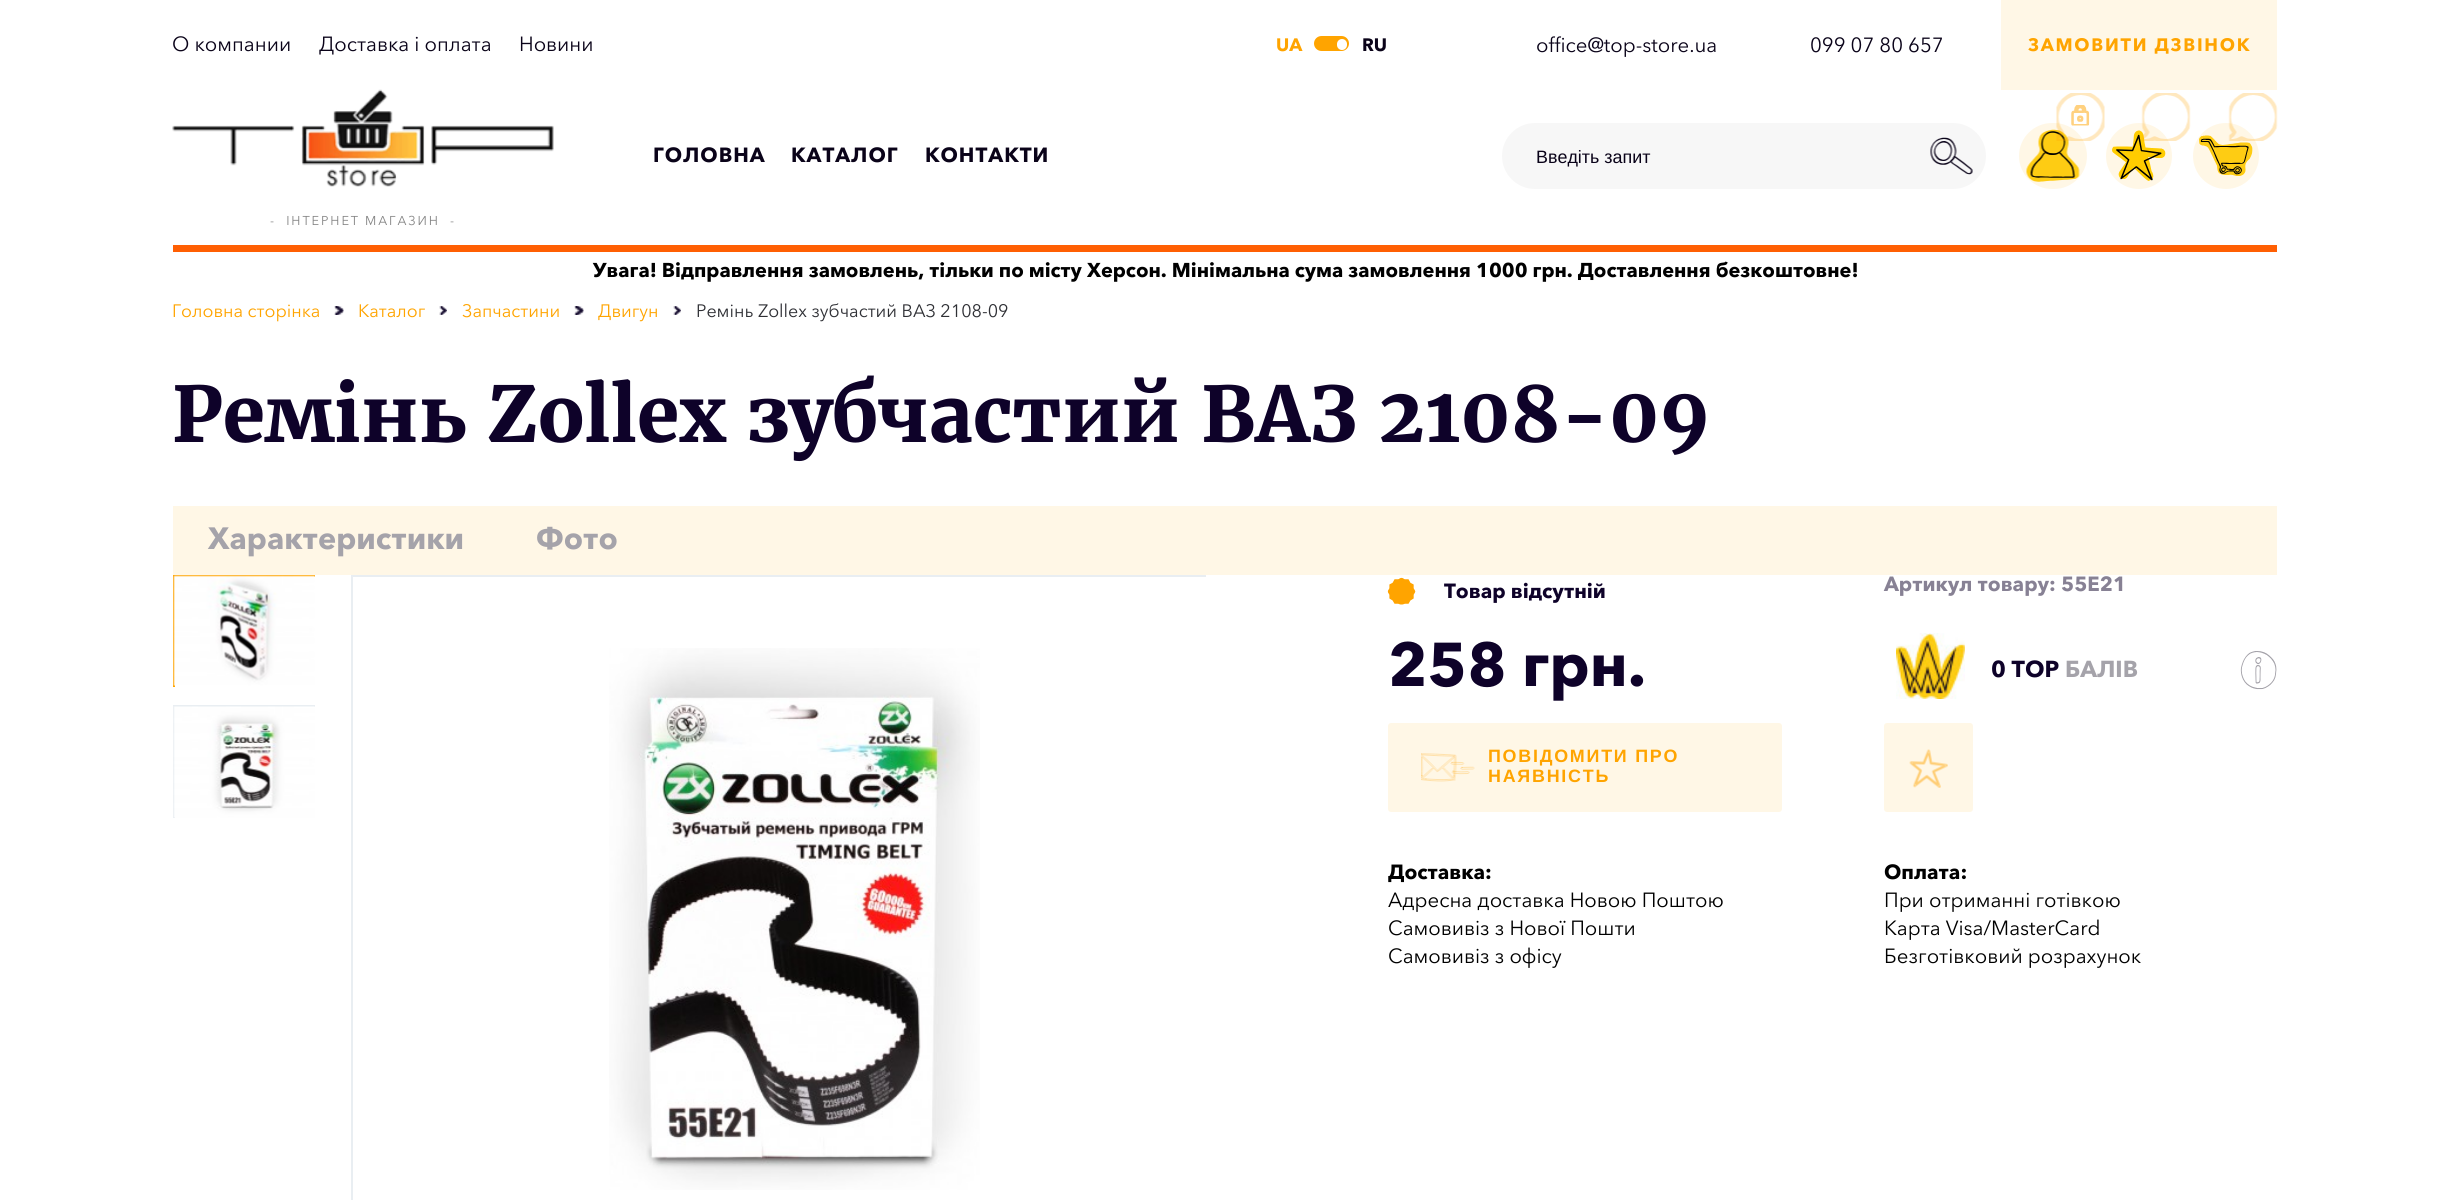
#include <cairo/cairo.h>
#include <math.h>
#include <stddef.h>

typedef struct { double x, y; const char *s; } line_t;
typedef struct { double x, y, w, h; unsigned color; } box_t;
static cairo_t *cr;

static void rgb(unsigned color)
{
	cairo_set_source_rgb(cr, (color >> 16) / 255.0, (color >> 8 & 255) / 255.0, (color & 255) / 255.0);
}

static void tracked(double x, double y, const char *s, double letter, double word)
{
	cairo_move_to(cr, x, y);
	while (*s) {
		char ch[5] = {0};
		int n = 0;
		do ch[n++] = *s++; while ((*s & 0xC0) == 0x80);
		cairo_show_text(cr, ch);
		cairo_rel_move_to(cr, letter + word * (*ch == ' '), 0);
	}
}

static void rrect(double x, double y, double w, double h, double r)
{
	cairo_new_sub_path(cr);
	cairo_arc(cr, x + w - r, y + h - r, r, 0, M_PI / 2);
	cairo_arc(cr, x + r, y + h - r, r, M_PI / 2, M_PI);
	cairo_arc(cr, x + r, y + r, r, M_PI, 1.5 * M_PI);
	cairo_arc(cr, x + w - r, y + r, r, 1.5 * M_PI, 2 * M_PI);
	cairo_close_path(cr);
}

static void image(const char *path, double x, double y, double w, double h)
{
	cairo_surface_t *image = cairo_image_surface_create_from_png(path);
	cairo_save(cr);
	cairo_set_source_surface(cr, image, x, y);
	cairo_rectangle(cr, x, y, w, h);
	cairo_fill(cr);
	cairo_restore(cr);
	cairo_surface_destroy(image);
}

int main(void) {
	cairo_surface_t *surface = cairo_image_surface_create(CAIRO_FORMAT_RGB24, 2449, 1200);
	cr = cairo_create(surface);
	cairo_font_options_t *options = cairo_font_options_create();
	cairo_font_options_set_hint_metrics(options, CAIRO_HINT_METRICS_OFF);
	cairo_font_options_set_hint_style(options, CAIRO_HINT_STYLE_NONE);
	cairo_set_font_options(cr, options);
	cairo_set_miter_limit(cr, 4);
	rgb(0xffffff);
	cairo_paint(cr);
	rgb(0xffa400);
	rrect(1314, 36, 35, 15, 7.5);
	cairo_fill(cr);
	rgb(0xffffff);
	rrect(1337, 39, 10, 11, 5);
	cairo_fill(cr);
	rgb(0xfff7e6);
	cairo_rectangle(cr, 2001, 0, 276, 90);
	cairo_fill(cr);
	rgb(0xff5f03);
	cairo_rectangle(cr, 173, 245, 2104, 7);
	cairo_fill(cr);
	rgb(0xf7f7f7);
	rrect(1502, 123, 484, 66, 33);
	cairo_fill(cr);
	image("img/1.png", 1930, 137, 43, 38);
	rgb(0xfff7e6);
	rrect(2019, 123, 68, 66, 33);
	cairo_fill(cr);
	image("img/4.png", 2026, 129, 54, 53);
	image("img/2.png", 2056, 93, 49, 48);
	image("img/3.png", 2071, 105, 19, 21);
	cairo_arc(cr, 2139, 156, 33, 0, 2 * M_PI);
	cairo_fill(cr);
	image("img/6.png", 2112, 130, 54, 51);
	image("img/5.png", 2141, 93, 50, 48);
	cairo_arc(cr, 2226, 156, 33, 0, 2 * M_PI);
	cairo_fill(cr);
	image("img/8.png", 2199, 135, 54, 41);
	image("img/7.png", 2228, 93, 50, 48);
	image("img/9.png", 172, 89, 382, 98);
	image("img/10.png", 334, 306, 10, 9);
	image("img/11.png", 439, 306, 8, 9);
	image("img/10.png", 574, 306, 10, 9);
	image("img/11.png", 673, 306, 8, 9);
	{
		static const box_t items[] = {
			{173, 506, 2104, 69, 0xfff7e6},
			{173, 575, 142, 2, 0xffa400},
			{173, 575, 2, 112, 0xffa400},
		};
		for (size_t i = 0; i < sizeof items / sizeof *items; i++) {
			rgb(items[i].color);
			cairo_rectangle(cr, items[i].x, items[i].y, items[i].w, items[i].h);
			cairo_fill(cr);
		}
	}
	image("img/12.png", 173, 575, 142, 111);
	rgb(0xe9eef2);
	cairo_rectangle(cr, 173, 705, 142, 2);
	cairo_fill(cr);
	cairo_rectangle(cr, 173, 705, 2, 113);
	cairo_fill(cr);
	image("img/13.png", 173, 706, 142, 112);
	cairo_rectangle(cr, 351, 575, 855, 2);
	cairo_fill(cr);
	cairo_rectangle(cr, 351, 575, 2, 625);
	cairo_fill(cr);
	image("img/14.png", 609, 648, 371, 542);
	image("img/15.png", 1387, 577, 29, 28);
	image("img/16.png", 1896, 633, 69, 66);
	image("img/17.png", 2240, 651, 37, 39);
	rgb(0xfff7e6);
	rrect(1388, 723, 394, 89, 3);
	cairo_fill(cr);
	image("img/18.png", 1421, 753, 54, 29);
	rrect(1885, 724, 87, 87, 2);
	cairo_fill_preserve(cr);
	cairo_stroke(cr);
	image("img/19.png", 1909, 749, 39, 39);
	cairo_select_font_face(cr, "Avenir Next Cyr", CAIRO_FONT_SLANT_NORMAL, CAIRO_FONT_WEIGHT_NORMAL);
	cairo_set_font_size(cr, 20.4);
	rgb(0x0a0319);
	{
		static const line_t items[] = {
			{172, 51, "О компании"},
			{319, 51, "Доставка і оплата"},
			{519, 51, "Новини"},
		};
		for (size_t i = 0; i < sizeof items / sizeof *items; i++) {
			cairo_move_to(cr, items[i].x, items[i].y);
			cairo_show_text(cr, items[i].s);
		}
	}
	cairo_select_font_face(cr, "Avenir Next Cyr", CAIRO_FONT_SLANT_NORMAL, CAIRO_FONT_WEIGHT_BOLD);
	cairo_set_font_size(cr, 17.9);
	rgb(0xffa400);
	cairo_move_to(cr, 1276, 51);
	cairo_show_text(cr, "UA");
	rgb(0x0a0319);
	cairo_move_to(cr, 1362, 51);
	cairo_show_text(cr, "RU");
	cairo_select_font_face(cr, "Avenir Next Cyr", CAIRO_FONT_SLANT_NORMAL, CAIRO_FONT_WEIGHT_NORMAL);
	cairo_set_font_size(cr, 20.4);
	cairo_move_to(cr, 1536, 52);
	cairo_show_text(cr, "office@top-store.ua");
	cairo_move_to(cr, 1810, 52);
	cairo_show_text(cr, "099 07 80 657");
	cairo_select_font_face(cr, "Avenir Next Cyr", CAIRO_FONT_SLANT_NORMAL, CAIRO_FONT_WEIGHT_BOLD);
	cairo_set_font_size(cr, 17.9);
	rgb(0xffa400);
	tracked(2028, 51, "ЗАМОВИТИ ДЗВІНОК", 1.75, 0);
	cairo_set_font_size(cr, 20.4);
	rgb(0x0a0319);
	{
		static const line_t items[] = {
			{653, 162, "ГОЛОВНА"},
			{791, 162, "КАТАЛОГ"},
			{925, 162, "КОНТАКТИ"},
		};
		for (size_t i = 0; i < sizeof items / sizeof *items; i++) {
			tracked(items[i].x, items[i].y, items[i].s, 1, 0);
		}
	}
	cairo_select_font_face(cr, "Liberation Sans", CAIRO_FONT_SLANT_NORMAL, CAIRO_FONT_WEIGHT_NORMAL);
	cairo_set_font_size(cr, 17.9);
	cairo_move_to(cr, 1536, 163);
	cairo_show_text(cr, "Введіть запит");
	cairo_select_font_face(cr, "Avenir Next Cyr", CAIRO_FONT_SLANT_NORMAL, CAIRO_FONT_WEIGHT_NORMAL);
	cairo_set_font_size(cr, 12.75);
	rgb(0x838383);
	tracked(270, 225, "-  ІНТЕРНЕТ МАГАЗИН  -", 1.9, 0);
	cairo_select_font_face(cr, "Avenir Next Cyr", CAIRO_FONT_SLANT_NORMAL, CAIRO_FONT_WEIGHT_BOLD);
	cairo_set_font_size(cr, 19.92);
	rgb(0x000000);
	cairo_move_to(cr, 593, 277);
	cairo_show_text(cr, "Увага! Відправлення замовлень, тільки по місту Херсон. Мінімальна сума замовлення 1000 грн. Доставлення безкоштовне!");
	cairo_select_font_face(cr, "Avenir Next Cyr", CAIRO_FONT_SLANT_NORMAL, CAIRO_FONT_WEIGHT_NORMAL);
	cairo_set_font_size(cr, 17.9);
	rgb(0xffa400);
	{
		static const line_t items[] = {
			{172, 317, "Головна сторінка"},
			{358, 317, "Каталог"},
			{462, 317, "Запчастини"},
			{598, 317, "Двигун"},
		};
		for (size_t i = 0; i < sizeof items / sizeof *items; i++) {
			cairo_move_to(cr, items[i].x, items[i].y);
			cairo_show_text(cr, items[i].s);
		}
	}
	rgb(0x2f3035);
	cairo_move_to(cr, 696, 317);
	cairo_show_text(cr, "Ремінь Zollex зубчастий ВАЗ 2108-09");
	cairo_select_font_face(cr, "Merriweather", CAIRO_FONT_SLANT_NORMAL, CAIRO_FONT_WEIGHT_BOLD);
	cairo_set_font_size(cr, 76.55);
	rgb(0x0e0229);
	cairo_move_to(cr, 172, 442);
	cairo_show_text(cr, "Ремінь Zollex зубчастий ВАЗ 2108-09");
	cairo_select_font_face(cr, "Avenir Next Cyr", CAIRO_FONT_SLANT_NORMAL, CAIRO_FONT_WEIGHT_BOLD);
	cairo_set_font_size(cr, 30.6);
	rgb(0xa5a3aa);
	cairo_move_to(cr, 208, 549);
	cairo_show_text(cr, "Характеристики");
	cairo_move_to(cr, 536, 549);
	cairo_show_text(cr, "Фото");
	cairo_set_font_size(cr, 20.4);
	rgb(0x0e0229);
	cairo_move_to(cr, 1444, 598);
	cairo_show_text(cr, "Товар відсутній");
	rgb(0x878194);
	cairo_move_to(cr, 1884, 591);
	cairo_show_text(cr, "Артикул товару: 55E21");
	cairo_set_font_size(cr, 61.25);
	rgb(0x0e0229);
	cairo_move_to(cr, 1388, 686);
	cairo_show_text(cr, "258 грн.");
	cairo_set_font_size(cr, 23);
	cairo_move_to(cr, 1991, 677);
	cairo_show_text(cr, "0 TOP");
	rgb(0xa5a3aa);
	cairo_move_to(cr, 2065, 677);
	cairo_show_text(cr, "БАЛІВ");
	cairo_select_font_face(cr, "Liberation Sans", CAIRO_FONT_SLANT_NORMAL, CAIRO_FONT_WEIGHT_BOLD);
	cairo_set_font_size(cr, 17.9);
	rgb(0xffa400);
	tracked(1488, 762, "ПОВІДОМИТИ ПРО", 1.75, 0);
	tracked(1488, 782, "НАЯВНІСТЬ", 1.75, 0);
	cairo_select_font_face(cr, "Avenir Next Cyr", CAIRO_FONT_SLANT_NORMAL, CAIRO_FONT_WEIGHT_BOLD);
	cairo_set_font_size(cr, 20.4);
	rgb(0x000000);
	cairo_move_to(cr, 1388, 879);
	cairo_show_text(cr, "Доставка:");
	cairo_select_font_face(cr, "Avenir Next Cyr", CAIRO_FONT_SLANT_NORMAL, CAIRO_FONT_WEIGHT_NORMAL);
	{
		static const line_t items[] = {
			{1388, 907, "Адресна доставка Новою Поштою"},
			{1388, 935, "Самовивіз з Нової Пошти"},
			{1388, 963, "Самовивіз з офісу"},
		};
		for (size_t i = 0; i < sizeof items / sizeof *items; i++) {
			cairo_move_to(cr, items[i].x, items[i].y);
			cairo_show_text(cr, items[i].s);
		}
	}
	cairo_select_font_face(cr, "Avenir Next Cyr", CAIRO_FONT_SLANT_NORMAL, CAIRO_FONT_WEIGHT_BOLD);
	cairo_move_to(cr, 1884, 879);
	cairo_show_text(cr, "Оплата:");
	cairo_select_font_face(cr, "Avenir Next Cyr", CAIRO_FONT_SLANT_NORMAL, CAIRO_FONT_WEIGHT_NORMAL);
	{
		static const line_t items[] = {
			{1884, 907, "При отриманні готівкою"},
			{1884, 935, "Карта Visa/MasterCard"},
			{1884, 963, "Безготівковий розрахунок"},
		};
		for (size_t i = 0; i < sizeof items / sizeof *items; i++) {
			cairo_move_to(cr, items[i].x, items[i].y);
			cairo_show_text(cr, items[i].s);
		}
	}
	cairo_surface_write_to_png(surface, "page.png");
	cairo_font_options_destroy(options);
	cairo_destroy(cr);
	cairo_surface_destroy(surface);
	return 0;
}
